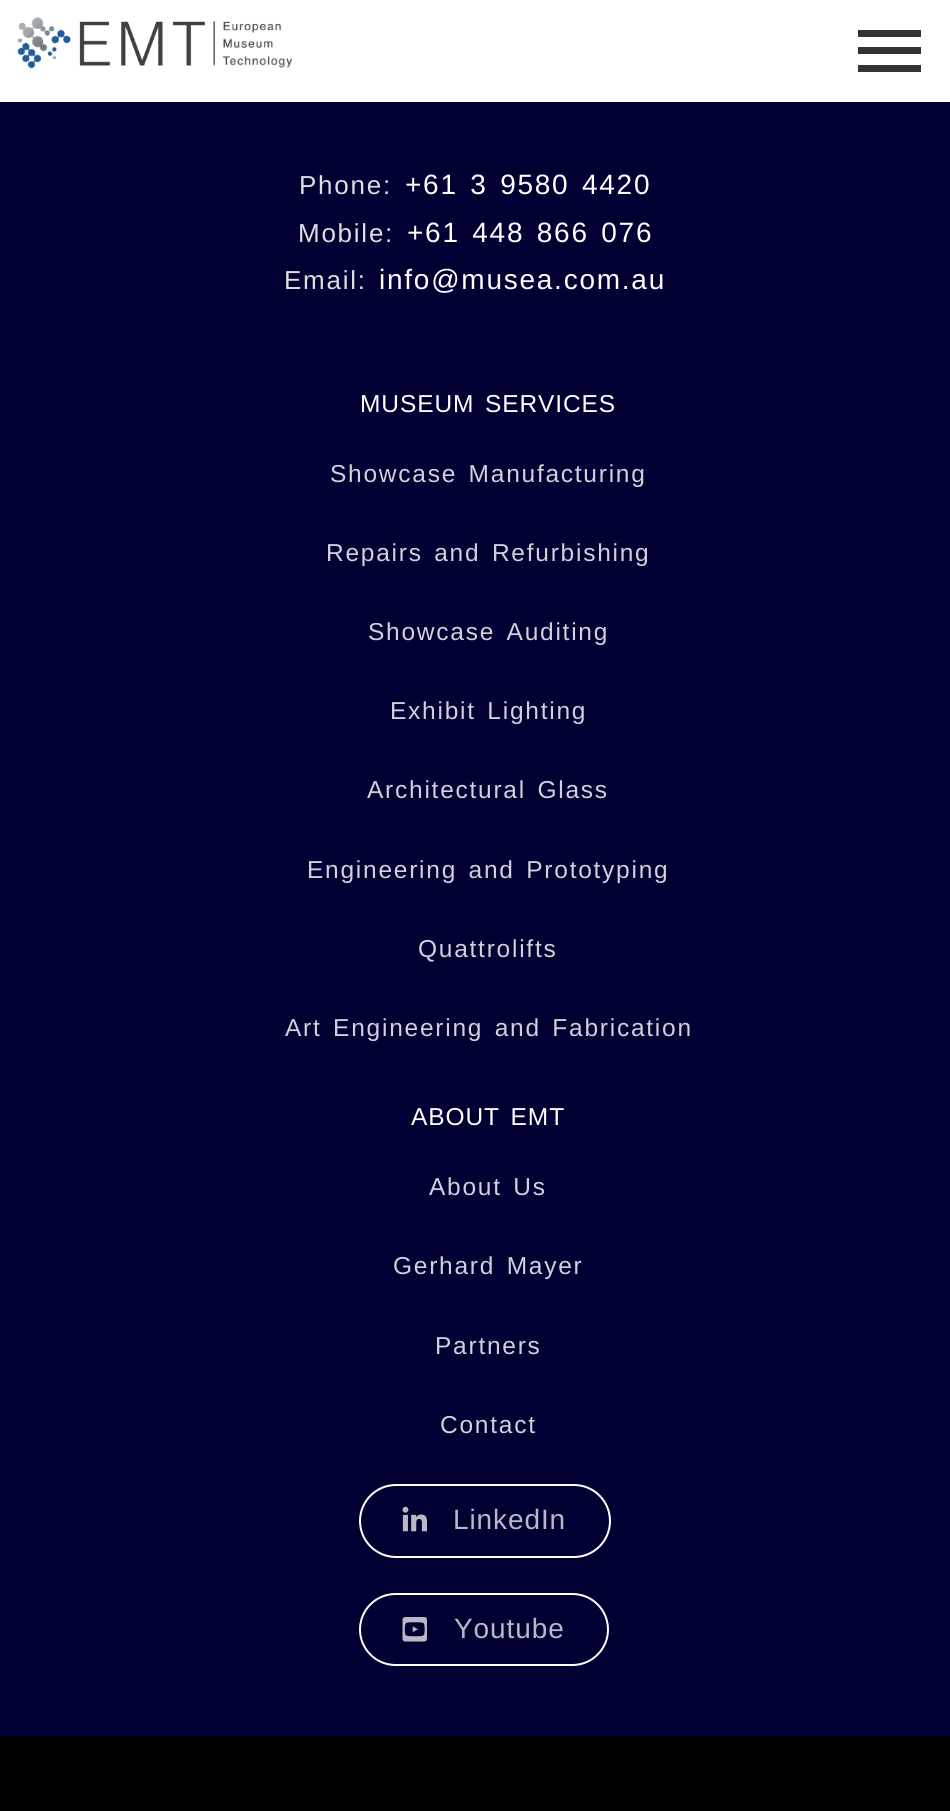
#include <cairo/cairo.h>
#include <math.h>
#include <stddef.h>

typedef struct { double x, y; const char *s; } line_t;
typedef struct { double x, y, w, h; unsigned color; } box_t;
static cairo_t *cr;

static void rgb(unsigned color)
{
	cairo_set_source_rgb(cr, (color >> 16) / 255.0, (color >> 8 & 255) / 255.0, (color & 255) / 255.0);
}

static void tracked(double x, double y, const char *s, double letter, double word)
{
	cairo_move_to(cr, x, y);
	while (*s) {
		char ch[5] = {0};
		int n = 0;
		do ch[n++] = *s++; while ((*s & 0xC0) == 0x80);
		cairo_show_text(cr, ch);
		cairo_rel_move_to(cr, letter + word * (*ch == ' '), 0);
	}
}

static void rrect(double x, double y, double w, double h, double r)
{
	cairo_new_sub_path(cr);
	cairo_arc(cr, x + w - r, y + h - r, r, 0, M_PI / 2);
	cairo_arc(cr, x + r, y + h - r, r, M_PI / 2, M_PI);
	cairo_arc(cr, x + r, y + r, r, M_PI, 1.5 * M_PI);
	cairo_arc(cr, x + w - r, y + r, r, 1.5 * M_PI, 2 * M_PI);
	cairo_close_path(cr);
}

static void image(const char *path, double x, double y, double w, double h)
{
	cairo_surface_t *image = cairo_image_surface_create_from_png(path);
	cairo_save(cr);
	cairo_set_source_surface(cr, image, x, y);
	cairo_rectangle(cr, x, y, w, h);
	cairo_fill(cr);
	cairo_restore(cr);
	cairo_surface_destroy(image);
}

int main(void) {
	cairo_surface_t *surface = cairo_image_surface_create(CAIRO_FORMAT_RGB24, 950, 1811);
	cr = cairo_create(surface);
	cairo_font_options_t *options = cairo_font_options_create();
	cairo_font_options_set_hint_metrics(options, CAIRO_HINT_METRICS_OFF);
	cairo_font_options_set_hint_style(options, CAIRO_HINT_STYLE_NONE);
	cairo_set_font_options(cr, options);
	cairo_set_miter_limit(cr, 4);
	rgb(0x000033);
	cairo_paint(cr);
	rgb(0xffffff);
	cairo_rectangle(cr, 0, 0, 950, 102);
	cairo_fill(cr);
	image("img/1.png", 17, 17, 276, 52);
	{
		static const box_t items[] = {
			{858, 30, 63, 7, 0x333333},
			{858, 47, 63, 7, 0x333333},
			{858, 65, 63, 7, 0x333333},
		};
		for (size_t i = 0; i < sizeof items / sizeof *items; i++) {
			rgb(items[i].color);
			cairo_rectangle(cr, items[i].x, items[i].y, items[i].w, items[i].h);
			cairo_fill(cr);
		}
	}
	rrect(360, 1485, 250, 72, 36);
	rgb(0xffffff);
	cairo_stroke(cr);
	image("img/2.png", 402, 1506, 25, 26);
	rrect(360, 1594, 248, 71, 35.5);
	cairo_stroke(cr);
	image("img/3.png", 402, 1617, 25, 25);
	rgb(0x000000);
	cairo_rectangle(cr, 0, 1736, 950, 75);
	cairo_fill(cr);
	cairo_select_font_face(cr, "Liberation Sans", CAIRO_FONT_SLANT_NORMAL, CAIRO_FONT_WEIGHT_NORMAL);
	cairo_set_font_size(cr, 26);
	rgb(0xdedede);
	tracked(299, 194, "Phone:", 1.75, 0);
	cairo_set_font_size(cr, 28);
	rgb(0xffffff);
	tracked(405, 194, "+61 3 9580 4420", 1.75, 3);
	cairo_set_font_size(cr, 26);
	rgb(0xdedede);
	tracked(298, 242, "Mobile:", 1.75, 0);
	cairo_set_font_size(cr, 28);
	rgb(0xffffff);
	tracked(407, 242, "+61 448 866 076", 1.75, 3);
	cairo_set_font_size(cr, 26);
	rgb(0xdedede);
	tracked(284, 289, "Email:", 1.75, 0);
	cairo_set_font_size(cr, 28);
	rgb(0xffffff);
	tracked(379, 289, "info@musea.com.au", 1.75, 0);
	cairo_set_font_size(cr, 24.5);
	tracked(360, 412, "MUSEUM SERVICES", 0.9, 3);
	rgb(0xd1d1da);
	{
		static const line_t items[] = {
			{330, 482, "Showcase Manufacturing"},
			{326, 561, "Repairs and Refurbishing"},
			{368, 640, "Showcase Auditing"},
			{390, 719, "Exhibit Lighting"},
			{367, 798, "Architectural Glass"},
			{307, 878, "Engineering and Prototyping"},
		};
		for (size_t i = 0; i < sizeof items / sizeof *items; i++) {
			tracked(items[i].x, items[i].y, items[i].s, 1.75, 3);
		}
	}
	tracked(418, 957, "Quattrolifts", 1.75, 0);
	tracked(285, 1036, "Art Engineering and Fabrication", 1.75, 3);
	rgb(0xffffff);
	tracked(411, 1125, "ABOUT EMT", 0.9, 3);
	rgb(0xd1d1da);
	tracked(429, 1195, "About Us", 1.75, 3);
	tracked(393, 1274, "Gerhard Mayer", 1.75, 3);
	tracked(435, 1354, "Partners", 1.75, 0);
	tracked(440, 1433, "Contact", 1.75, 0);
	cairo_set_font_size(cr, 28);
	rgb(0xb8b8c6);
	tracked(453, 1529, "LinkedIn", 0.9, 0);
	tracked(454, 1638, "Youtube", 0.9, 0);
	cairo_surface_write_to_png(surface, "page.png");
	cairo_font_options_destroy(options);
	cairo_destroy(cr);
	cairo_surface_destroy(surface);
	return 0;
}
